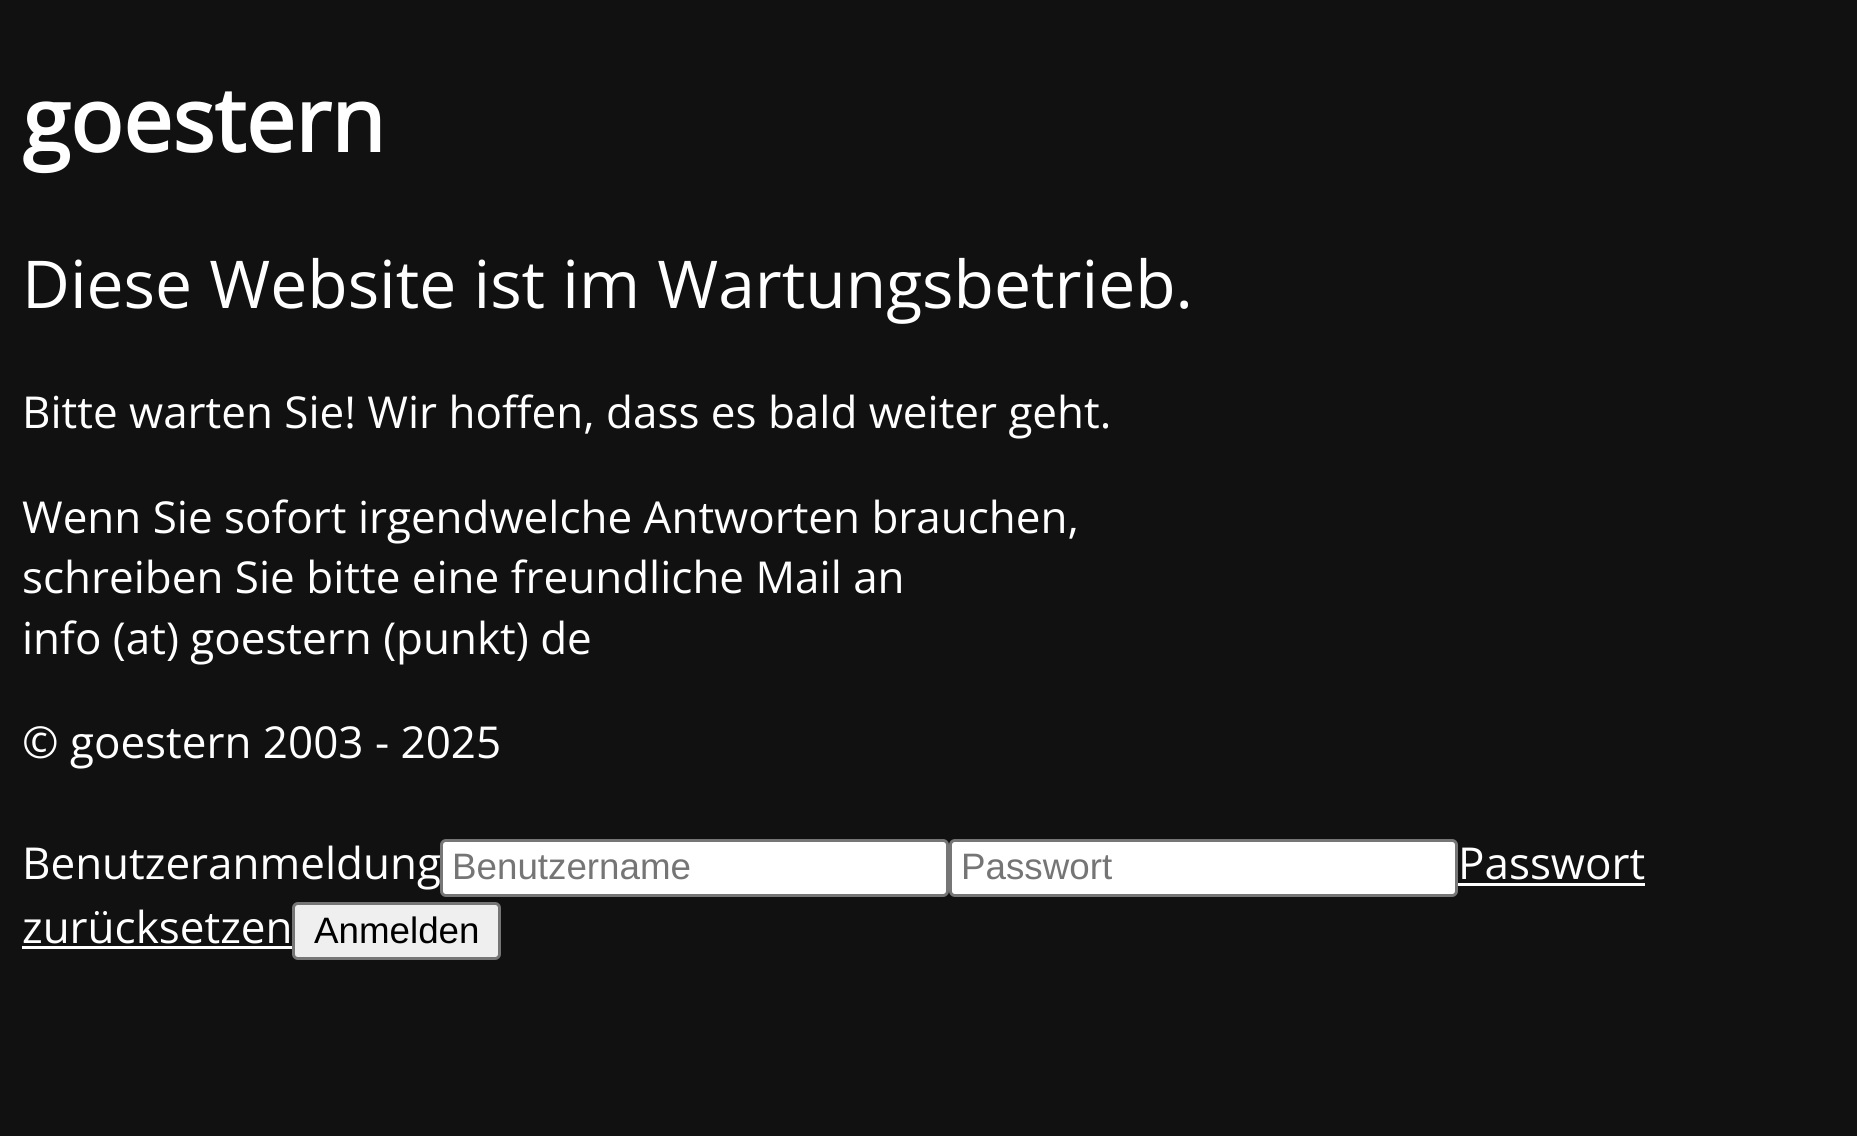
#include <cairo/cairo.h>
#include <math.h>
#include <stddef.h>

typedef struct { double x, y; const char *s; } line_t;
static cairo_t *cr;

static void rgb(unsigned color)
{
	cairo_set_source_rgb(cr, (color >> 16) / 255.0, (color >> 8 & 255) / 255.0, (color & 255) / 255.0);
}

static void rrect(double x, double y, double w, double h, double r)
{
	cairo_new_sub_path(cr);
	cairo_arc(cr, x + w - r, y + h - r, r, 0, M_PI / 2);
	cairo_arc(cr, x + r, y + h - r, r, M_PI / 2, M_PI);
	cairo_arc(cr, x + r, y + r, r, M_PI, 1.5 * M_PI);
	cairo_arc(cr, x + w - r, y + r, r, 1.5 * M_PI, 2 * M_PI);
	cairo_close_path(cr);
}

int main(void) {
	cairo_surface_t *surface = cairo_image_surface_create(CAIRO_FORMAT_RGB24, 1857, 1136);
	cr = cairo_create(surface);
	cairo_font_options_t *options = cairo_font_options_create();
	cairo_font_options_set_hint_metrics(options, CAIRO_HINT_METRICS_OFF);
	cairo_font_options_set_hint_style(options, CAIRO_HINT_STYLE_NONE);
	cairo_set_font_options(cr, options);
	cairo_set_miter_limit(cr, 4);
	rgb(0x111111);
	cairo_paint(cr);
	rgb(0xffffff);
	rrect(441.5, 840.5, 506, 55, 4.5);
	cairo_fill_preserve(cr);
	rgb(0x767676);
	cairo_set_line_width(cr, 3);
	cairo_stroke(cr);
	rgb(0xffffff);
	rrect(950.5, 840.5, 506, 55, 4.5);
	cairo_fill_preserve(cr);
	rgb(0x767676);
	cairo_stroke(cr);
	rgb(0xffffff);
	cairo_rectangle(cr, 1458, 883, 187, 3);
	cairo_fill(cr);
	cairo_rectangle(cr, 22, 946, 270, 3);
	cairo_fill(cr);
	rgb(0xefefef);
	rrect(293.5, 903.5, 206, 55, 4.5);
	cairo_fill_preserve(cr);
	rgb(0x767676);
	cairo_stroke(cr);
	cairo_select_font_face(cr, "Open Sans", CAIRO_FONT_SLANT_NORMAL, CAIRO_FONT_WEIGHT_BOLD);
	cairo_set_font_size(cr, 88);
	rgb(0xffffff);
	cairo_move_to(cr, 22, 152);
	cairo_show_text(cr, "goestern");
	cairo_select_font_face(cr, "Open Sans", CAIRO_FONT_SLANT_NORMAL, CAIRO_FONT_WEIGHT_NORMAL);
	cairo_set_font_size(cr, 66);
	cairo_move_to(cr, 22, 308);
	cairo_show_text(cr, "Diese Website ist im Wartungsbetrieb.");
	cairo_set_font_size(cr, 44);
	{
		static const line_t items[] = {
			{22, 428, "Bitte warten Sie! Wir hoffen, dass es bald weiter geht."},
			{22, 533, "Wenn Sie sofort irgendwelche Antworten brauchen,"},
			{22, 593, "schreiben Sie bitte eine freundliche Mail an"},
			{22, 654, "info (at) goestern (punkt) de"},
			{22, 758, "© goestern 2003 - 2025"},
			{22, 879, "Benutzeranmeldung"},
		};
		for (size_t i = 0; i < sizeof items / sizeof *items; i++) {
			cairo_move_to(cr, items[i].x, items[i].y);
			cairo_show_text(cr, items[i].s);
		}
	}
	cairo_select_font_face(cr, "Liberation Sans", CAIRO_FONT_SLANT_NORMAL, CAIRO_FONT_WEIGHT_NORMAL);
	cairo_set_font_size(cr, 36.75);
	rgb(0x757575);
	cairo_move_to(cr, 452, 879);
	cairo_show_text(cr, "Benutzername");
	cairo_move_to(cr, 961, 879);
	cairo_show_text(cr, "Passwort");
	cairo_select_font_face(cr, "Open Sans", CAIRO_FONT_SLANT_NORMAL, CAIRO_FONT_WEIGHT_NORMAL);
	cairo_set_font_size(cr, 44);
	rgb(0xffffff);
	cairo_move_to(cr, 1458, 879);
	cairo_show_text(cr, "Passwort");
	cairo_move_to(cr, 22, 943);
	cairo_show_text(cr, "zurücksetzen");
	cairo_select_font_face(cr, "Liberation Sans", CAIRO_FONT_SLANT_NORMAL, CAIRO_FONT_WEIGHT_NORMAL);
	cairo_set_font_size(cr, 36.75);
	rgb(0x000000);
	cairo_move_to(cr, 314, 943);
	cairo_show_text(cr, "Anmelden");
	cairo_surface_write_to_png(surface, "page.png");
	cairo_font_options_destroy(options);
	cairo_destroy(cr);
	cairo_surface_destroy(surface);
	return 0;
}
